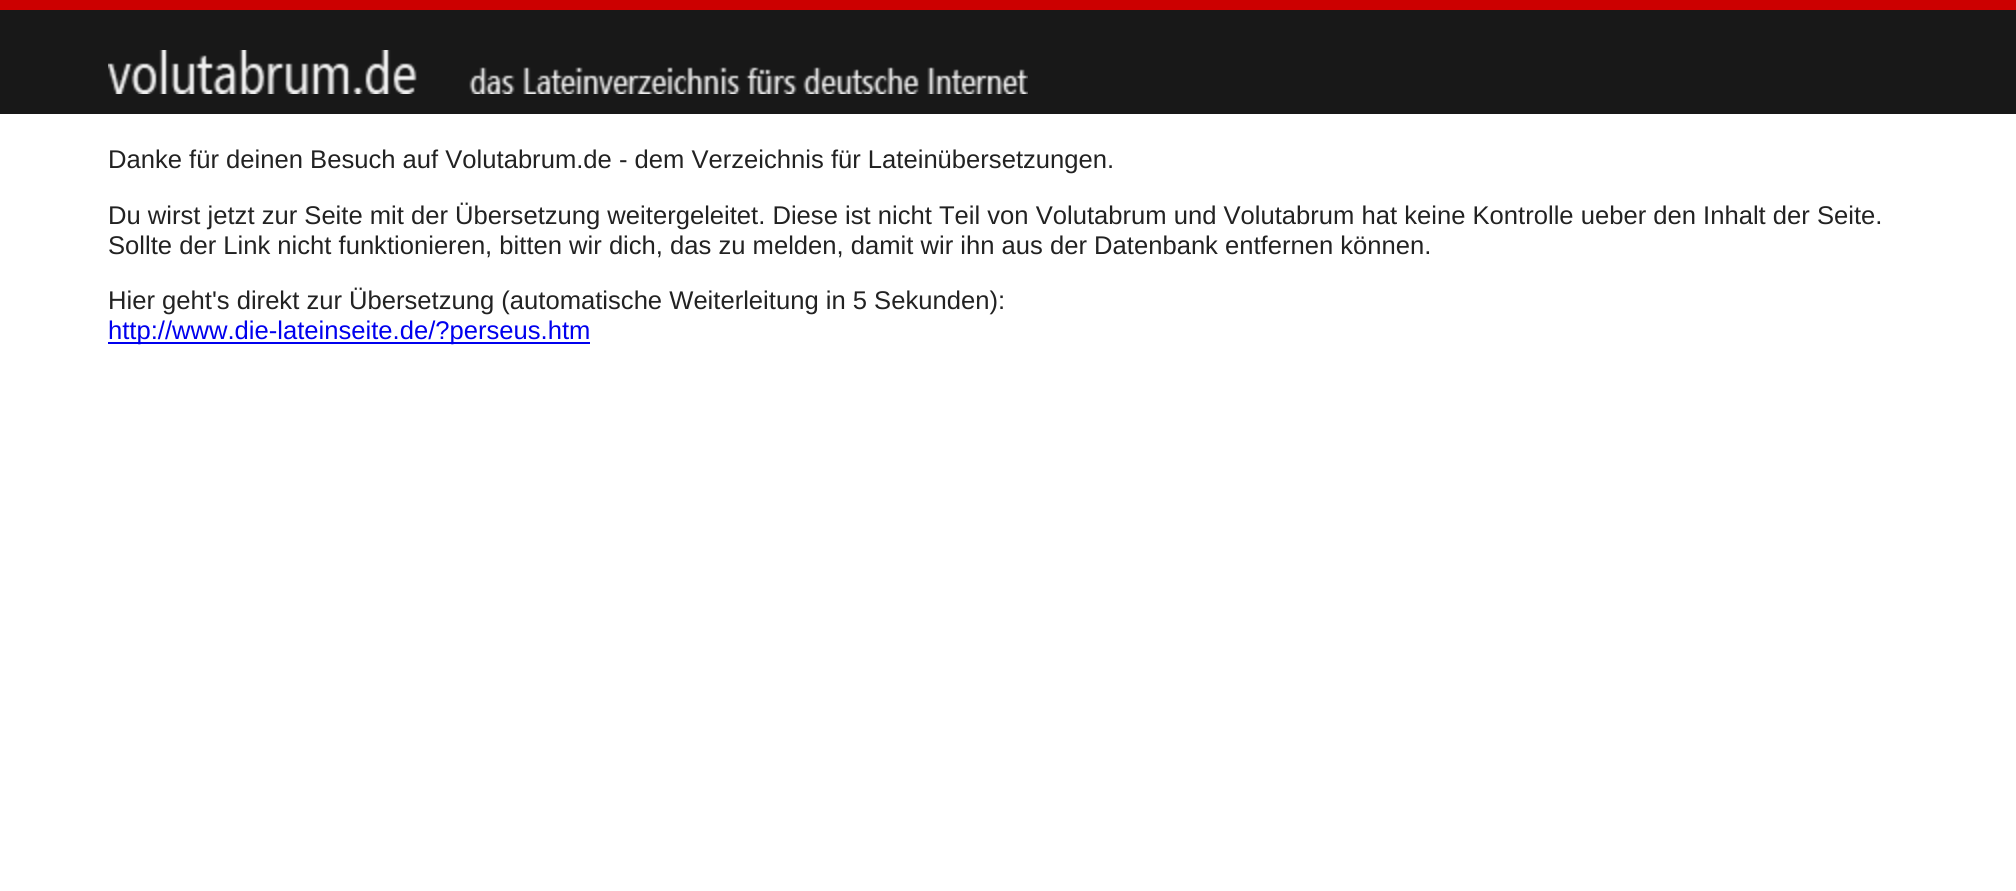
#include <cairo/cairo.h>
#include <math.h>
#include <stddef.h>

typedef struct { double x, y; const char *s; } line_t;
static cairo_t *cr;

static void rgb(unsigned color)
{
	cairo_set_source_rgb(cr, (color >> 16) / 255.0, (color >> 8 & 255) / 255.0, (color & 255) / 255.0);
}

static void image(const char *path, double x, double y, double w, double h)
{
	cairo_surface_t *image = cairo_image_surface_create_from_png(path);
	cairo_save(cr);
	cairo_set_source_surface(cr, image, x, y);
	cairo_rectangle(cr, x, y, w, h);
	cairo_fill(cr);
	cairo_restore(cr);
	cairo_surface_destroy(image);
}

int main(void) {
	cairo_surface_t *surface = cairo_image_surface_create(CAIRO_FORMAT_RGB24, 2016, 891);
	cr = cairo_create(surface);
	cairo_font_options_t *options = cairo_font_options_create();
	cairo_font_options_set_hint_metrics(options, CAIRO_HINT_METRICS_OFF);
	cairo_font_options_set_hint_style(options, CAIRO_HINT_STYLE_NONE);
	cairo_set_font_options(cr, options);
	cairo_set_miter_limit(cr, 4);
	rgb(0xffffff);
	cairo_paint(cr);
	rgb(0x181818);
	cairo_rectangle(cr, 0, 10, 2016, 104);
	cairo_fill(cr);
	rgb(0xcc0000);
	cairo_rectangle(cr, 0, 0, 2016, 10);
	cairo_fill(cr);
	image("img/1.png", 108, 50, 920, 44);
	rgb(0x0000ee);
	cairo_rectangle(cr, 108, 342, 482, 2);
	cairo_fill(cr);
	cairo_select_font_face(cr, "Liberation Sans", CAIRO_FONT_SLANT_NORMAL, CAIRO_FONT_WEIGHT_NORMAL);
	cairo_set_font_size(cr, 25.6);
	rgb(0x222222);
	{
		static const line_t items[] = {
			{108, 168, "Danke für deinen Besuch auf Volutabrum.de - dem Verzeichnis für Lateinübersetzungen."},
			{108, 224, "Du wirst jetzt zur Seite mit der Übersetzung weitergeleitet. Diese ist nicht Teil von Volutabrum und Volutabrum hat keine Kontrolle ueber den Inhalt der Seite."},
			{108, 254, "Sollte der Link nicht funktionieren, bitten wir dich, das zu melden, damit wir ihn aus der Datenbank entfernen können."},
			{108, 309, "Hier geht's direkt zur Übersetzung (automatische Weiterleitung in 5 Sekunden):"},
		};
		for (size_t i = 0; i < sizeof items / sizeof *items; i++) {
			cairo_move_to(cr, items[i].x, items[i].y);
			cairo_show_text(cr, items[i].s);
		}
	}
	rgb(0x0000ee);
	cairo_move_to(cr, 108, 339);
	cairo_show_text(cr, "http://www.die-lateinseite.de/?perseus.htm");
	cairo_surface_write_to_png(surface, "page.png");
	cairo_font_options_destroy(options);
	cairo_destroy(cr);
	cairo_surface_destroy(surface);
	return 0;
}
